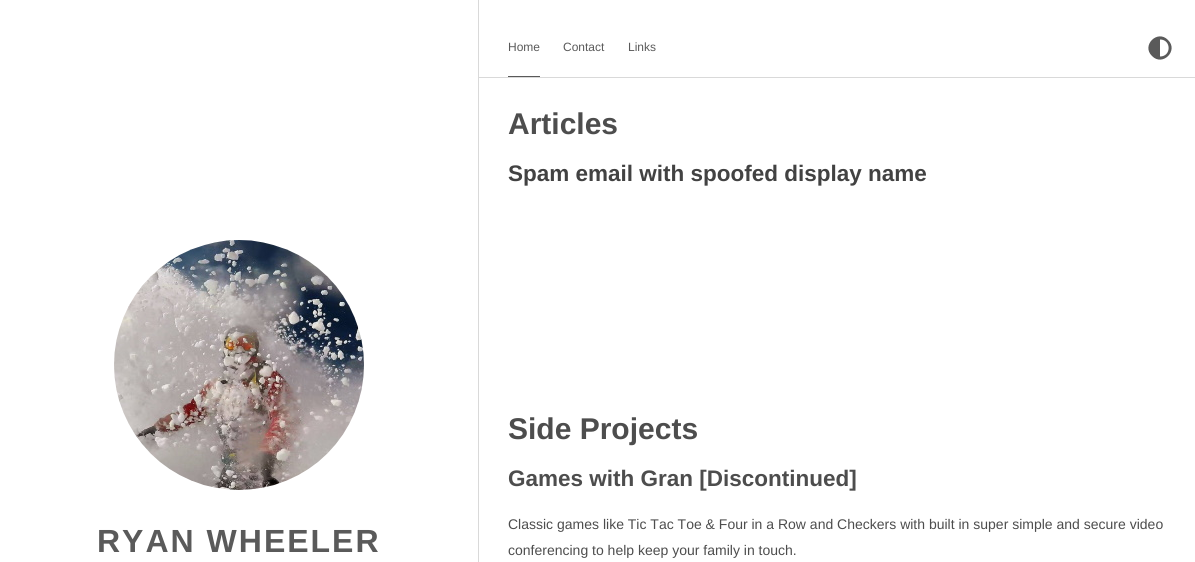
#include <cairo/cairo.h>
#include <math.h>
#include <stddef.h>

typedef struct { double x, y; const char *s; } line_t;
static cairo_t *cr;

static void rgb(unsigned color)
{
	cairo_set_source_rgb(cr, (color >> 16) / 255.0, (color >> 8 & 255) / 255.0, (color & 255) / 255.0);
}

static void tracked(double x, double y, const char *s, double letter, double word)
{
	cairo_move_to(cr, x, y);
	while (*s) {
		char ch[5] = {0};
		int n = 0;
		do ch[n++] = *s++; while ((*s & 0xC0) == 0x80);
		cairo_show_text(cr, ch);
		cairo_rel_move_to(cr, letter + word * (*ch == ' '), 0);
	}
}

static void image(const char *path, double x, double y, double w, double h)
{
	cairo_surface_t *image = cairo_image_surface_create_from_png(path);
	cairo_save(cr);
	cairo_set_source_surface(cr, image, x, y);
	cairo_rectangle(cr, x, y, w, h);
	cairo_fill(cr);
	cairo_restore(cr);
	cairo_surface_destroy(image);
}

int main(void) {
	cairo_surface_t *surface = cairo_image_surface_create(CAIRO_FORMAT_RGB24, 1195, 562);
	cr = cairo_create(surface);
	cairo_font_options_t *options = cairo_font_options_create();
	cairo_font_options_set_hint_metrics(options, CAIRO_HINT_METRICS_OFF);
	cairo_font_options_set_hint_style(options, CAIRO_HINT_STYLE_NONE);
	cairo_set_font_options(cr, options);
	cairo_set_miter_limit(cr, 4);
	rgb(0xffffff);
	cairo_paint(cr);
	rgb(0xd9d9d9);
	cairo_rectangle(cr, 478, 77, 717, 1);
	cairo_fill(cr);
	cairo_rectangle(cr, 478, 0, 1, 562);
	cairo_fill(cr);
	image("img/1.png", 114, 240, 250, 250);
	rgb(0x5a5a5a);
	cairo_rectangle(cr, 508, 76, 32, 1);
	cairo_fill(cr);
	cairo_new_path(cr);
	cairo_move_to(cr, 1152, 56);
	cairo_curve_to(cr, 1141, 45.5, 1157.5, 29, 1168, 40);
	cairo_curve_to(cr, 1179, 50.5, 1162.5, 67, 1152, 56);
	cairo_close_path(cr);
	cairo_move_to(cr, 1160, 56.5);
	cairo_curve_to(cr, 1171.5, 56.5, 1171.5, 39.5, 1160, 39.5);
	cairo_close_path(cr);
	cairo_fill(cr);
	cairo_select_font_face(cr, "Liberation Sans", CAIRO_FONT_SLANT_NORMAL, CAIRO_FONT_WEIGHT_BOLD);
	cairo_set_font_size(cr, 32);
	tracked(97, 552, "RYAN WHEELER", 2, 0);
	cairo_select_font_face(cr, "Liberation Sans", CAIRO_FONT_SLANT_NORMAL, CAIRO_FONT_WEIGHT_NORMAL);
	cairo_set_font_size(cr, 12);
	{
		static const line_t items[] = {
			{508, 51, "Home"},
			{563, 51, "Contact"},
			{628, 51, "Links"},
		};
		for (size_t i = 0; i < sizeof items / sizeof *items; i++) {
			cairo_move_to(cr, items[i].x, items[i].y);
			cairo_show_text(cr, items[i].s);
		}
	}
	cairo_select_font_face(cr, "Liberation Sans", CAIRO_FONT_SLANT_NORMAL, CAIRO_FONT_WEIGHT_BOLD);
	cairo_set_font_size(cr, 30);
	rgb(0x4d4d4d);
	cairo_move_to(cr, 508, 134);
	cairo_show_text(cr, "Articles");
	cairo_set_font_size(cr, 22.5);
	rgb(0x424242);
	cairo_move_to(cr, 508, 181);
	cairo_show_text(cr, "Spam email with spoofed display name");
	cairo_set_font_size(cr, 30);
	rgb(0x4d4d4d);
	cairo_move_to(cr, 508, 439);
	cairo_show_text(cr, "Side Projects");
	cairo_set_font_size(cr, 22.5);
	cairo_move_to(cr, 508, 486);
	cairo_show_text(cr, "Games with Gran [Discontinued]");
	cairo_select_font_face(cr, "Liberation Sans", CAIRO_FONT_SLANT_NORMAL, CAIRO_FONT_WEIGHT_NORMAL);
	cairo_set_font_size(cr, 14);
	cairo_move_to(cr, 508, 529);
	cairo_show_text(cr, "Classic games like Tic Tac Toe & Four in a Row and Checkers with built in super simple and secure video");
	cairo_move_to(cr, 508, 555);
	cairo_show_text(cr, "conferencing to help keep your family in touch.");
	cairo_surface_write_to_png(surface, "page.png");
	cairo_font_options_destroy(options);
	cairo_destroy(cr);
	cairo_surface_destroy(surface);
	return 0;
}
